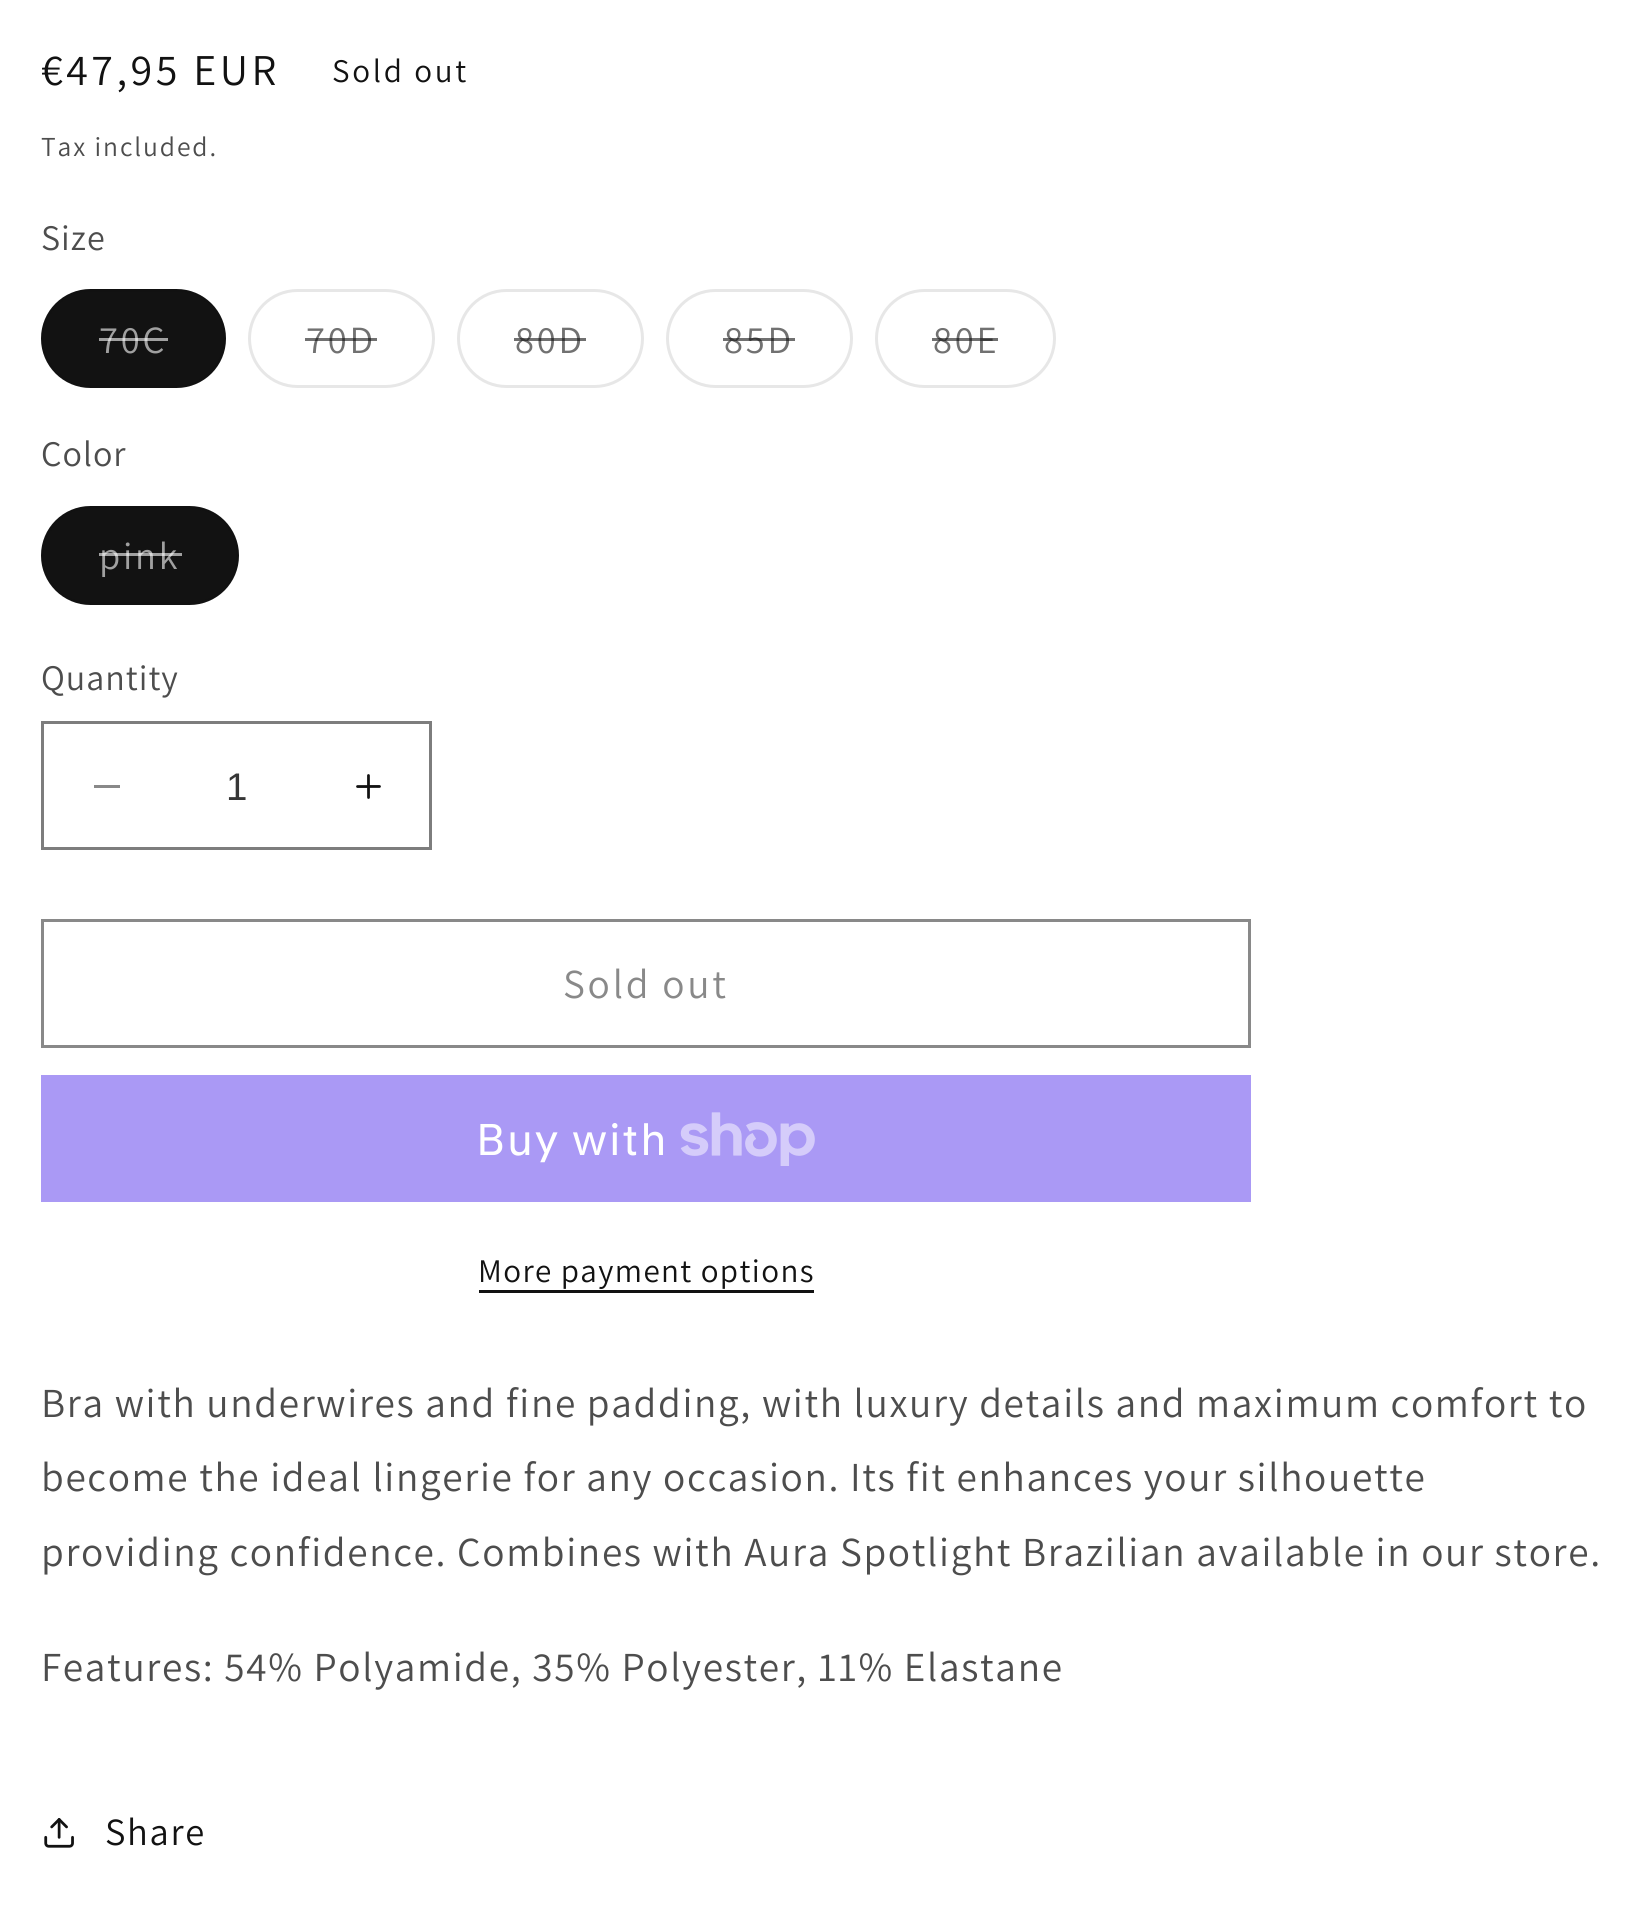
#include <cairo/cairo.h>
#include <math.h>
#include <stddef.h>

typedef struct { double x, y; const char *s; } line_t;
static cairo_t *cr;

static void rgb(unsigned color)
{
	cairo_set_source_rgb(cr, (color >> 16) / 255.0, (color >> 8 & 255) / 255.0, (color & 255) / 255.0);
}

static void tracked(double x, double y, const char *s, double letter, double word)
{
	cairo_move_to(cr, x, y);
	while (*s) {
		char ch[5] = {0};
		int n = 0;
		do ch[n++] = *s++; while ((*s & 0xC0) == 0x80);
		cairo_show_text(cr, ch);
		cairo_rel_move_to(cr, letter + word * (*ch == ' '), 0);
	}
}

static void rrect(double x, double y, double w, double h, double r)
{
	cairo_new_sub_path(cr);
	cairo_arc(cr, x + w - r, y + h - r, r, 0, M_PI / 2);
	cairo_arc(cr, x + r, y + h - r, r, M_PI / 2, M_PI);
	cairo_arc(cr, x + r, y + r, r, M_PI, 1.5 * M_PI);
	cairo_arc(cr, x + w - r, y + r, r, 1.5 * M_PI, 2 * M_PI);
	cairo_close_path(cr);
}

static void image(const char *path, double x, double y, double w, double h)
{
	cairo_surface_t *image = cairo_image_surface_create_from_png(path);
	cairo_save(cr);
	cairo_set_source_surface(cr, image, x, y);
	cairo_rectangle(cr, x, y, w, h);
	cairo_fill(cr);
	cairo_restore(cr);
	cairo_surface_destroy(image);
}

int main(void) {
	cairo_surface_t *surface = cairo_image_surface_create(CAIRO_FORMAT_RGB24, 1646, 1912);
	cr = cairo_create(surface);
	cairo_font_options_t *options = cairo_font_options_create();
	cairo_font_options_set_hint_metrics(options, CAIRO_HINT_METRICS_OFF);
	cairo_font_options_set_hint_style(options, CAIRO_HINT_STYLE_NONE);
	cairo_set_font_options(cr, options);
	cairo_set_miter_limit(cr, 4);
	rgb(0xffffff);
	cairo_paint(cr);
	rgb(0x121212);
	rrect(41, 289, 185, 99, 49.5);
	cairo_fill(cr);
	rrect(42.5, 290.5, 182, 96, 48);
	cairo_set_source_rgba(cr, 0.071, 0.071, 0.071, 0.1);
	cairo_set_line_width(cr, 3);
	cairo_stroke(cr);
	rrect(249.5, 290.5, 184, 96, 48);
	rgb(0xe7e7e7);
	cairo_stroke(cr);
	rrect(458.5, 290.5, 184, 96, 48);
	cairo_stroke(cr);
	rrect(667.5, 290.5, 184, 96, 48);
	cairo_stroke(cr);
	rrect(876.5, 290.5, 178, 96, 48);
	cairo_stroke(cr);
	rgb(0x121212);
	rrect(41, 506, 198, 99, 49.5);
	cairo_fill(cr);
	rrect(42.5, 507.5, 195, 96, 48);
	cairo_set_source_rgba(cr, 0.071, 0.071, 0.071, 0.1);
	cairo_stroke(cr);
	rgb(0x898989);
	cairo_rectangle(cr, 94, 785, 26, 3);
	cairo_fill(cr);
	image("img/1.png", 356, 774, 25, 25);
	cairo_rectangle(cr, 42.5, 722.5, 388, 126);
	rgb(0x7d7d7d);
	cairo_stroke(cr);
	cairo_rectangle(cr, 42.5, 920.5, 1207, 126);
	rgb(0x898989);
	cairo_stroke(cr);
	rgb(0xaa99f5);
	cairo_rectangle(cr, 41, 1075, 1210, 127);
	cairo_fill(cr);
	image("img/2.png", 680, 1112, 135, 54);
	rgb(0x121212);
	cairo_rectangle(cr, 479, 1290, 335, 3);
	cairo_fill(cr);
	image("img/3.png", 44, 1818, 30, 30);
	cairo_select_font_face(cr, "Assistant", CAIRO_FONT_SLANT_NORMAL, CAIRO_FONT_WEIGHT_NORMAL);
	cairo_set_font_size(cr, 44);
	tracked(41, 85, "€47,95 EUR", 3.5, 0);
	cairo_set_font_size(cr, 33);
	tracked(332, 82, "Sold out", 2.75, 0);
	cairo_set_font_size(cr, 27.5);
	rgb(0x4d4d4d);
	tracked(41, 156, "Tax included.", 1.9, 0);
	cairo_set_font_size(cr, 36);
	tracked(41, 250, "Size", 1, 0);
	cairo_set_font_size(cr, 38.5);
	rgb(0xa0a0a0);
	tracked(99, 353, "70C", 2.75, 0);
	cairo_set_source_rgba(cr, 1, 1, 1, 0.6);
	cairo_rectangle(cr, 99, 338, 69, 3);
	cairo_fill(cr);
	rgb(0x717171);
	tracked(306, 353, "70D", 2.75, 0);
	cairo_set_source_rgba(cr, 0.071, 0.071, 0.071, 0.6);
	cairo_rectangle(cr, 305, 338, 72, 3);
	cairo_fill(cr);
	rgb(0x717171);
	tracked(515, 353, "80D", 2.75, 0);
	cairo_set_source_rgba(cr, 0.071, 0.071, 0.071, 0.6);
	cairo_rectangle(cr, 514, 338, 72, 3);
	cairo_fill(cr);
	rgb(0x717171);
	tracked(724, 353, "85D", 2.75, 0);
	cairo_set_source_rgba(cr, 0.071, 0.071, 0.071, 0.6);
	cairo_rectangle(cr, 723, 338, 72, 3);
	cairo_fill(cr);
	rgb(0x717171);
	tracked(933, 353, "80E", 2.75, 0);
	cairo_set_source_rgba(cr, 0.071, 0.071, 0.071, 0.6);
	cairo_rectangle(cr, 932, 338, 66, 3);
	cairo_fill(cr);
	cairo_set_font_size(cr, 36);
	rgb(0x4d4d4d);
	tracked(41, 466, "Color", 1, 0);
	cairo_set_font_size(cr, 38.5);
	rgb(0xa0a0a0);
	tracked(99, 569, "pink", 2.75, 0);
	cairo_set_source_rgba(cr, 1, 1, 1, 0.6);
	cairo_rectangle(cr, 99, 553, 83, 3);
	cairo_fill(cr);
	cairo_set_font_size(cr, 36);
	rgb(0x4d4d4d);
	tracked(41, 690, "Quantity", 1, 0);
	cairo_select_font_face(cr, "Liberation Sans", CAIRO_FONT_SLANT_NORMAL, CAIRO_FONT_WEIGHT_NORMAL);
	cairo_set_font_size(cr, 38.5);
	rgb(0x363636);
	cairo_move_to(cr, 226, 800);
	cairo_show_text(cr, "1");
	cairo_select_font_face(cr, "Assistant", CAIRO_FONT_SLANT_NORMAL, CAIRO_FONT_WEIGHT_NORMAL);
	cairo_set_font_size(cr, 41.25);
	rgb(0x898989);
	tracked(563, 998, "Sold out", 2.75, 0);
	cairo_select_font_face(cr, "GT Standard", CAIRO_FONT_SLANT_NORMAL, CAIRO_FONT_WEIGHT_NORMAL);
	cairo_set_font_size(cr, 44);
	rgb(0xffffff);
	tracked(476, 1155, "Buy with", 1.65, 0);
	cairo_select_font_face(cr, "Assistant", CAIRO_FONT_SLANT_NORMAL, CAIRO_FONT_WEIGHT_NORMAL);
	cairo_set_font_size(cr, 33);
	rgb(0x121212);
	tracked(478, 1282, "More payment options", 1.4, 0);
	cairo_set_font_size(cr, 41.25);
	rgb(0x4d4d4d);
	{
		static const line_t items[] = {
			{41, 1417, "Bra with underwires and fine padding, with luxury details and maximum comfort to"},
			{41, 1491, "become the ideal lingerie for any occasion. Its fit enhances your silhouette"},
			{41, 1566, "providing confidence. Combines with Aura Spotlight Brazilian available in our store."},
			{41, 1681, "Features: 54% Polyamide, 35% Polyester, 11% Elastane"},
		};
		for (size_t i = 0; i < sizeof items / sizeof *items; i++) {
			tracked(items[i].x, items[i].y, items[i].s, 1.65, 0);
		}
	}
	cairo_set_font_size(cr, 38.5);
	rgb(0x121212);
	tracked(105, 1845, "Share", 1.65, 0);
	cairo_surface_write_to_png(surface, "page.png");
	cairo_font_options_destroy(options);
	cairo_destroy(cr);
	cairo_surface_destroy(surface);
	return 0;
}
